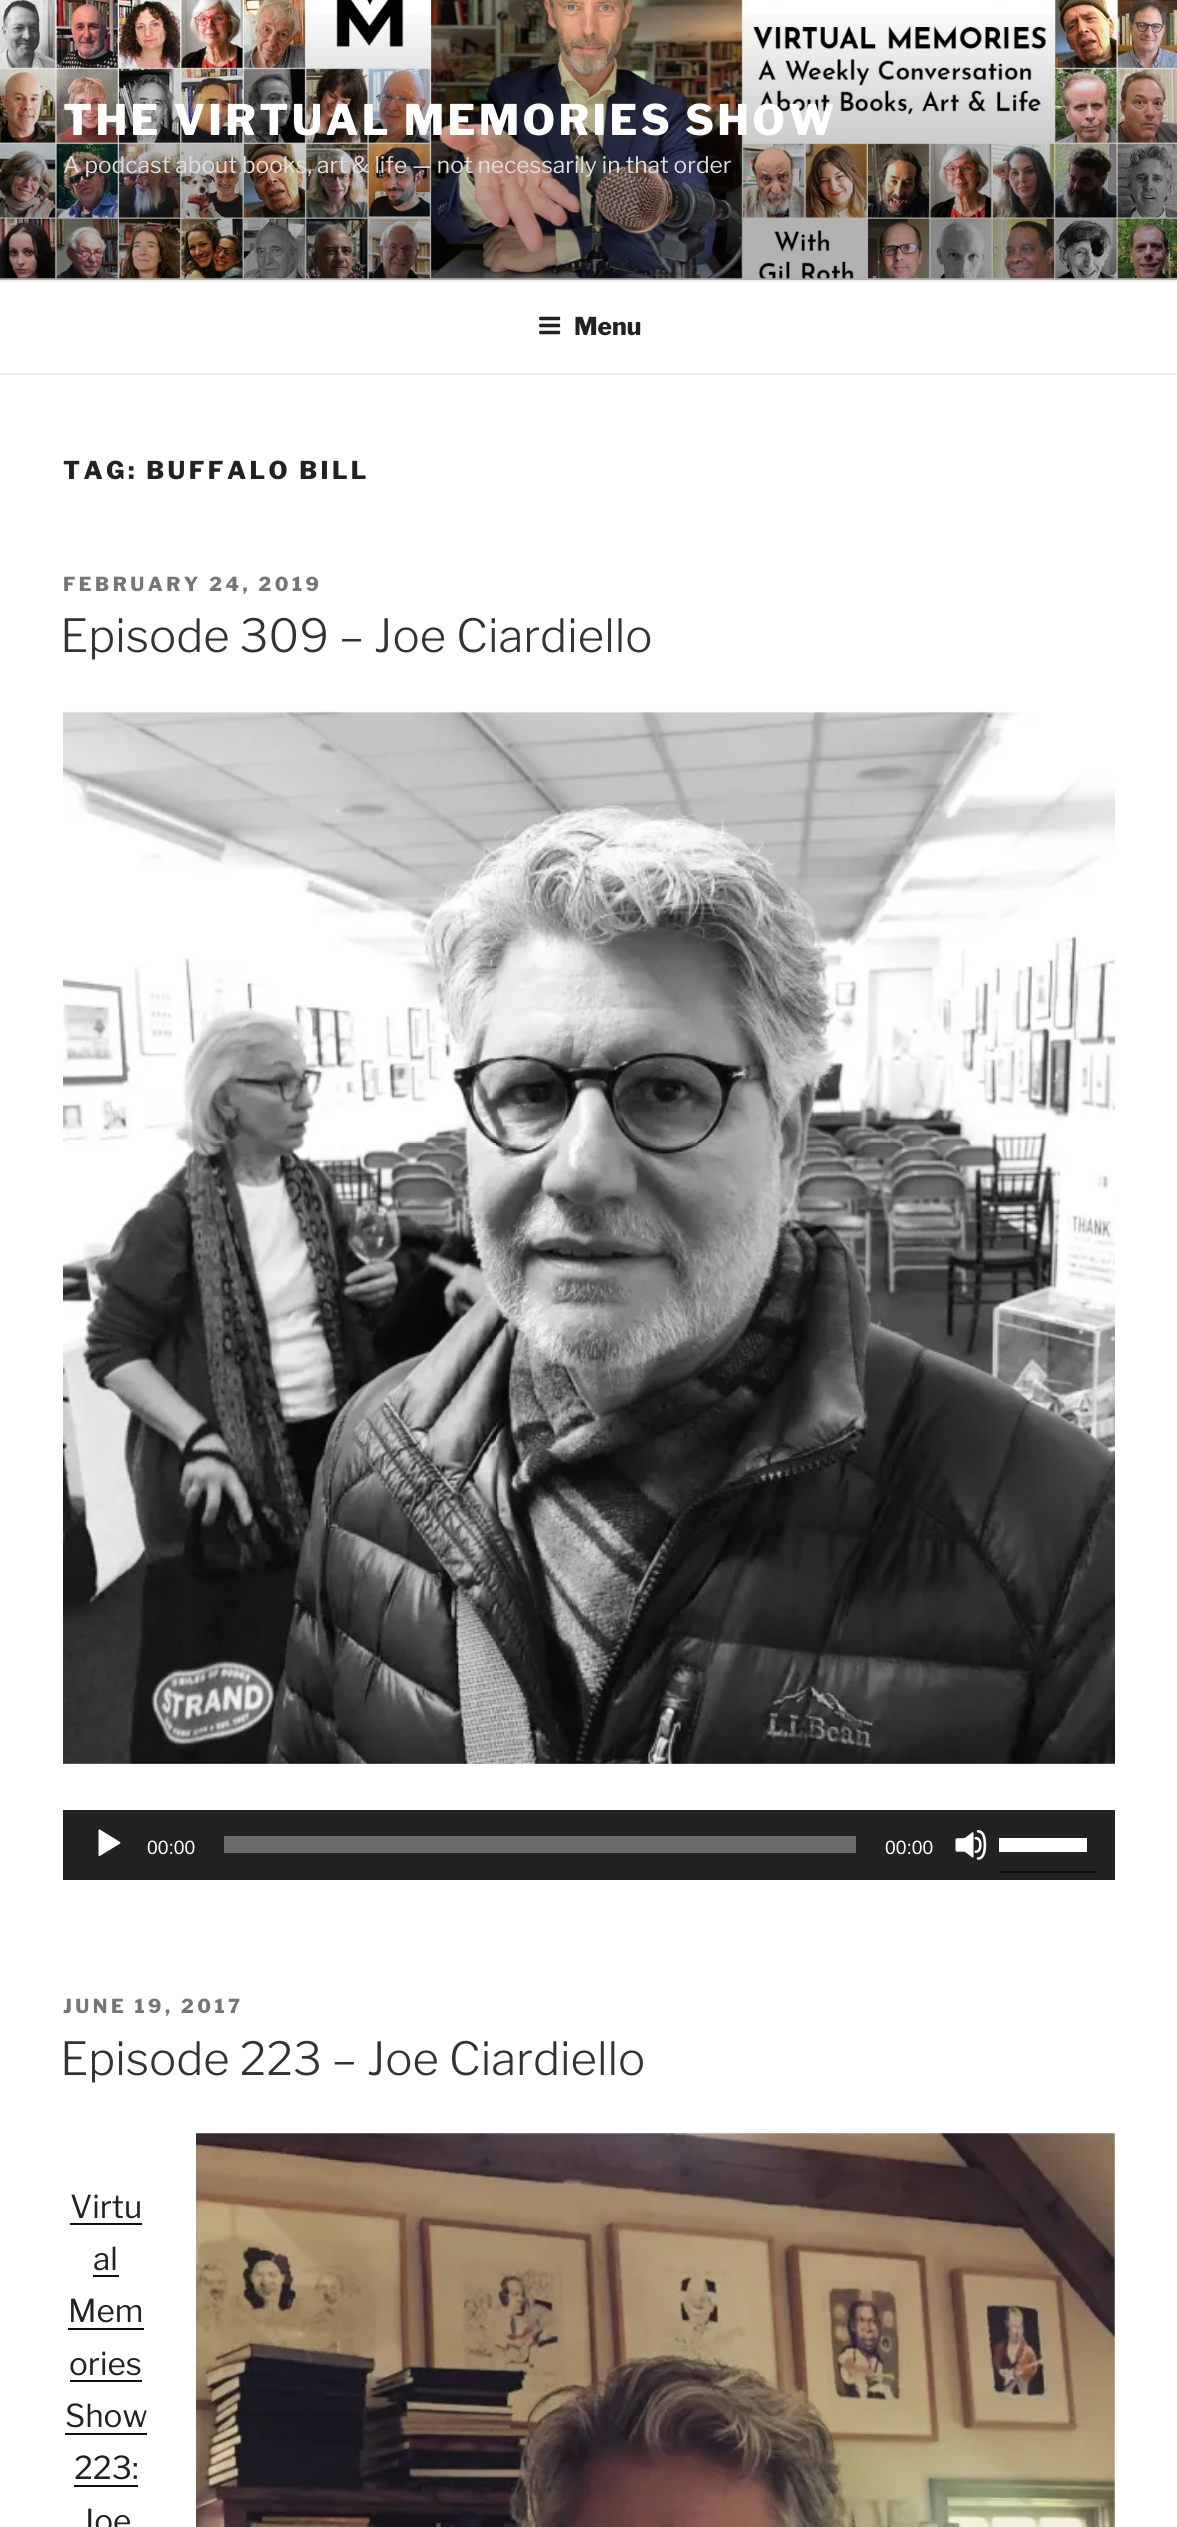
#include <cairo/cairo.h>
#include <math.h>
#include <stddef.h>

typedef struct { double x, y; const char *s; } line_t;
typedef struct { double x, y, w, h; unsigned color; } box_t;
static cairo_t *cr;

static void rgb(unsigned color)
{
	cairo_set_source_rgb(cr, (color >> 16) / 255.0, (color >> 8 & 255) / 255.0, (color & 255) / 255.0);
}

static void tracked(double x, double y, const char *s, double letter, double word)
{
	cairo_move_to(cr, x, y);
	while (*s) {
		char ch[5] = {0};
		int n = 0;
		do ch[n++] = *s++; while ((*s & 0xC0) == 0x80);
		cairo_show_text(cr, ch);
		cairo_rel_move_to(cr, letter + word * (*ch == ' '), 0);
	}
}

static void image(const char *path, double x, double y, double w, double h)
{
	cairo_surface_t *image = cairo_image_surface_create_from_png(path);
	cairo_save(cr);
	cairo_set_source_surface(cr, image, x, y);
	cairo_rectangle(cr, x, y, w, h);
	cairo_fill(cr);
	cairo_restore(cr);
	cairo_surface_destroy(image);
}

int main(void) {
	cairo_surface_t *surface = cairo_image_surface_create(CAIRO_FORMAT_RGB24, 1177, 2527);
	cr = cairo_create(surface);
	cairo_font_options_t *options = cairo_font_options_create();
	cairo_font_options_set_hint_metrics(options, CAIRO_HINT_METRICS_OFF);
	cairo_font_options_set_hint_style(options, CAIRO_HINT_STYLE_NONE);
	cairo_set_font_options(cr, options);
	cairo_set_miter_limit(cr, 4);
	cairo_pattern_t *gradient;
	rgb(0xffffff);
	cairo_paint(cr);
	rgb(0xfafafa);
	cairo_rectangle(cr, 0, 278, 1177, 2);
	cairo_fill(cr);
	image("img/1.png", 0, 0, 1177, 279);
	gradient = cairo_pattern_create_linear(589, 0, 589, 280);
	cairo_pattern_add_color_stop_rgba(gradient, 0, 0, 0, 0, 0);
	cairo_pattern_add_color_stop_rgba(gradient, 0.75, 0, 0, 0, 0.3);
	cairo_pattern_add_color_stop_rgba(gradient, 1, 0, 0, 0, 0.3);
	cairo_set_source(cr, gradient);
	cairo_pattern_destroy(gradient);
	cairo_rectangle(cr, 0, 15, 1177, 265);
	cairo_fill(cr);
	rgb(0xeeeeee);
	cairo_rectangle(cr, 0, 280, 1177, 2);
	cairo_fill(cr);
	cairo_rectangle(cr, 0, 373, 1177, 2);
	cairo_fill(cr);
	image("img/2.png", 539, 316, 22, 19);
	image("img/3.png", 63, 711, 1052, 1053);
	rgb(0x222222);
	cairo_rectangle(cr, 63, 1810, 1052, 70);
	cairo_fill(cr);
	image("img/4.png", 98, 1829, 23, 28);
	rgb(0x6b6b6b);
	cairo_rectangle(cr, 224, 1836, 632, 17);
	cairo_fill(cr);
	image("img/5.png", 955, 1830, 32, 30);
	{
		static const box_t items[] = {
			{999, 1871, 98, 2, 0x0f0f0f},
			{999, 1838, 88, 14, 0xffffff},
			{70, 2223, 72, 2, 0x0f0f0f},
			{93, 2275, 26, 2, 0x0f0f0f},
			{68, 2328, 76, 2, 0x0f0f0f},
			{70, 2380, 72, 2, 0x0f0f0f},
			{65, 2433, 82, 2, 0x0f0f0f},
			{74, 2485, 64, 2, 0x0f0f0f},
		};
		for (size_t i = 0; i < sizeof items / sizeof *items; i++) {
			rgb(items[i].color);
			cairo_rectangle(cr, items[i].x, items[i].y, items[i].w, items[i].h);
			cairo_fill(cr);
		}
	}
	image("img/6.png", 196, 2133, 919, 394);
	cairo_select_font_face(cr, "Libre Franklin Thin", CAIRO_FONT_SLANT_NORMAL, CAIRO_FONT_WEIGHT_NORMAL);
	cairo_set_font_size(cr, 42);
	rgb(0xffffff);
	tracked(63, 135, "THE VIRTUAL MEMORIES SHOW", 3.35, 0);
	cairo_select_font_face(cr, "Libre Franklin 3 Thin", CAIRO_FONT_SLANT_NORMAL, CAIRO_FONT_WEIGHT_NORMAL);
	cairo_set_font_size(cr, 22.75);
	rgb(0xe0dedd);
	cairo_move_to(cr, 63, 173);
	cairo_show_text(cr, "A podcast about books, art & life — not necessarily in that order");
	cairo_select_font_face(cr, "Libre Franklin Thin", CAIRO_FONT_SLANT_NORMAL, CAIRO_FONT_WEIGHT_NORMAL);
	cairo_set_font_size(cr, 24.5);
	rgb(0x222222);
	cairo_move_to(cr, 574, 335);
	cairo_show_text(cr, "Menu");
	tracked(63, 479, "TAG: BUFFALO BILL", 3.4, 0);
	cairo_set_font_size(cr, 19.25);
	rgb(0x767676);
	tracked(63, 591, "FEBRUARY 24, 2019", 3.5, 0);
	cairo_select_font_face(cr, "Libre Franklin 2 Thin", CAIRO_FONT_SLANT_NORMAL, CAIRO_FONT_WEIGHT_NORMAL);
	cairo_set_font_size(cr, 45.5);
	rgb(0x333333);
	cairo_move_to(cr, 60, 652);
	cairo_show_text(cr, "Episode 309 – Joe Ciardiello");
	cairo_select_font_face(cr, "Liberation Sans", CAIRO_FONT_SLANT_NORMAL, CAIRO_FONT_WEIGHT_NORMAL);
	cairo_set_font_size(cr, 19.25);
	rgb(0xffffff);
	cairo_move_to(cr, 147, 1854);
	cairo_show_text(cr, "00:00");
	cairo_move_to(cr, 885, 1854);
	cairo_show_text(cr, "00:00");
	cairo_select_font_face(cr, "Libre Franklin Thin", CAIRO_FONT_SLANT_NORMAL, CAIRO_FONT_WEIGHT_NORMAL);
	rgb(0x767676);
	tracked(63, 2013, "JUNE 19, 2017", 3.5, 0);
	cairo_select_font_face(cr, "Libre Franklin 2 Thin", CAIRO_FONT_SLANT_NORMAL, CAIRO_FONT_WEIGHT_NORMAL);
	cairo_set_font_size(cr, 45.5);
	rgb(0x333333);
	cairo_move_to(cr, 60, 2075);
	cairo_show_text(cr, "Episode 223 – Joe Ciardiello");
	cairo_select_font_face(cr, "Libre Franklin 3 Thin", CAIRO_FONT_SLANT_NORMAL, CAIRO_FONT_WEIGHT_NORMAL);
	cairo_set_font_size(cr, 31.5);
	rgb(0x222222);
	{
		static const line_t items[] = {
			{70, 2218, "Virtu"},
			{93, 2270, "al"},
			{68, 2322, "Mem"},
			{69, 2375, "ories"},
			{65, 2427, "Show"},
			{74, 2479, "223:"},
			{81, 2532, "Joe"},
		};
		for (size_t i = 0; i < sizeof items / sizeof *items; i++) {
			cairo_move_to(cr, items[i].x, items[i].y);
			cairo_show_text(cr, items[i].s);
		}
	}
	cairo_surface_write_to_png(surface, "page.png");
	cairo_font_options_destroy(options);
	cairo_destroy(cr);
	cairo_surface_destroy(surface);
	return 0;
}
